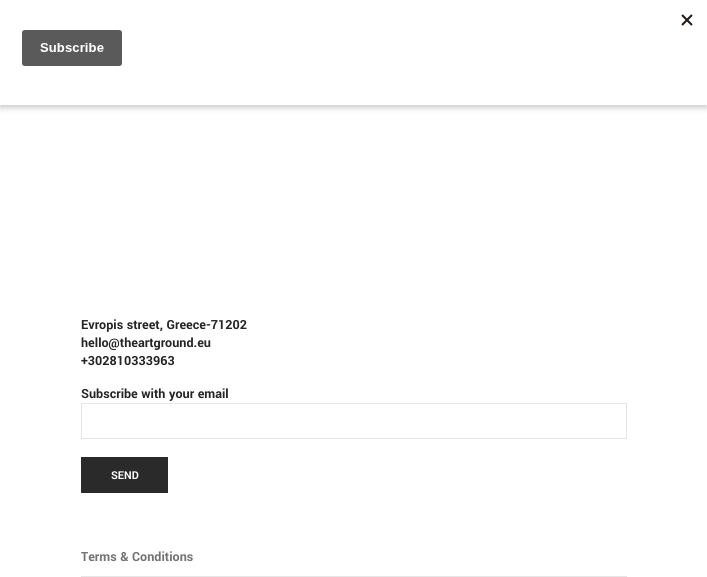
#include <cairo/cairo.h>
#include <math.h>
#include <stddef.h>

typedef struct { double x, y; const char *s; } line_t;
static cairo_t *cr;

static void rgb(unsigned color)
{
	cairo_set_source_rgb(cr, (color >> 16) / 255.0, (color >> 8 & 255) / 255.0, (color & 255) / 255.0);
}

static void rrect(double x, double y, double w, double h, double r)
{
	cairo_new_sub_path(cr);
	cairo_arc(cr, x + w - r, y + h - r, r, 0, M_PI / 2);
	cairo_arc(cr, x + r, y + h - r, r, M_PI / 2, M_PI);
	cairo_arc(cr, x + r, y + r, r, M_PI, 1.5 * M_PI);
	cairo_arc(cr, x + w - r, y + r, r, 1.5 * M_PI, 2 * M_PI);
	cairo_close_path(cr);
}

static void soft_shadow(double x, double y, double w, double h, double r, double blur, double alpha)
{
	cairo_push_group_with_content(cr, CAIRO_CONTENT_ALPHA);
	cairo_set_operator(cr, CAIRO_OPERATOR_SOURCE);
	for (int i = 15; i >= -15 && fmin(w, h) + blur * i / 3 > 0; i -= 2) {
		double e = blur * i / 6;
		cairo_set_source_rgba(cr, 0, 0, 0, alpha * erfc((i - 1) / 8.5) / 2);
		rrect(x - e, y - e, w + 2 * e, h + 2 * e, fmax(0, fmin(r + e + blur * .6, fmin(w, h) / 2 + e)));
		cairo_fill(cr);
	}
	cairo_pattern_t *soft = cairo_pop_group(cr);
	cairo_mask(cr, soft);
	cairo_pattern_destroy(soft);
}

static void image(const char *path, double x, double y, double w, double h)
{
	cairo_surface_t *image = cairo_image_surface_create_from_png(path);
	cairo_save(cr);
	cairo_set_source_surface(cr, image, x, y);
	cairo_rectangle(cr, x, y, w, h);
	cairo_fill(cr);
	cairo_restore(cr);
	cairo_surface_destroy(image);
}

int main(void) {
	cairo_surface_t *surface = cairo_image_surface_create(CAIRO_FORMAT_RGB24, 707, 577);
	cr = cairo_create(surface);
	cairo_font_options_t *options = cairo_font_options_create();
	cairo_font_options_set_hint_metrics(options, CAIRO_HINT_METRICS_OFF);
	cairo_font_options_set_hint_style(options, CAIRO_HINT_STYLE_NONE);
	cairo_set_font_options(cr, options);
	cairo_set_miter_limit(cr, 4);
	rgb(0xffffff);
	cairo_paint(cr);
	rgb(0x000000);
	soft_shadow(0, 3, 707, 105, 0, 3, 0.2);
	rgb(0xffffff);
	cairo_rectangle(cr, 0, 0, 707, 105);
	cairo_fill(cr);
	image("img/1.png", 22, 14, 671, 52);
	cairo_rectangle(cr, 81.5, 403.5, 545, 35);
	rgb(0xe6e6e6);
	cairo_set_line_width(cr, 1);
	cairo_stroke(cr);
	rgb(0x2a2a2a);
	cairo_rectangle(cr, 81, 457, 87, 36);
	cairo_fill(cr);
	rgb(0xe6e6e6);
	cairo_rectangle(cr, 81, 576, 546, 1);
	cairo_fill(cr);
	cairo_select_font_face(cr, "Yantramanav", CAIRO_FONT_SLANT_NORMAL, CAIRO_FONT_WEIGHT_BOLD);
	cairo_set_font_size(cr, 14);
	rgb(0x252525);
	{
		static const line_t items[] = {
			{81, 329, "Evropis street, Greece-71202"},
			{81, 347, "hello@theartground.eu"},
			{81, 365, "+302810333963"},
			{81, 398, "Subscribe with your email"},
		};
		for (size_t i = 0; i < sizeof items / sizeof *items; i++) {
			cairo_move_to(cr, items[i].x, items[i].y);
			cairo_show_text(cr, items[i].s);
		}
	}
	cairo_set_font_size(cr, 12);
	rgb(0xffffff);
	cairo_move_to(cr, 111, 479);
	cairo_show_text(cr, "SEND");
	cairo_set_font_size(cr, 14);
	rgb(0x737373);
	cairo_move_to(cr, 81, 561);
	cairo_show_text(cr, "Terms & Conditions");
	cairo_surface_write_to_png(surface, "page.png");
	cairo_font_options_destroy(options);
	cairo_destroy(cr);
	cairo_surface_destroy(surface);
	return 0;
}
